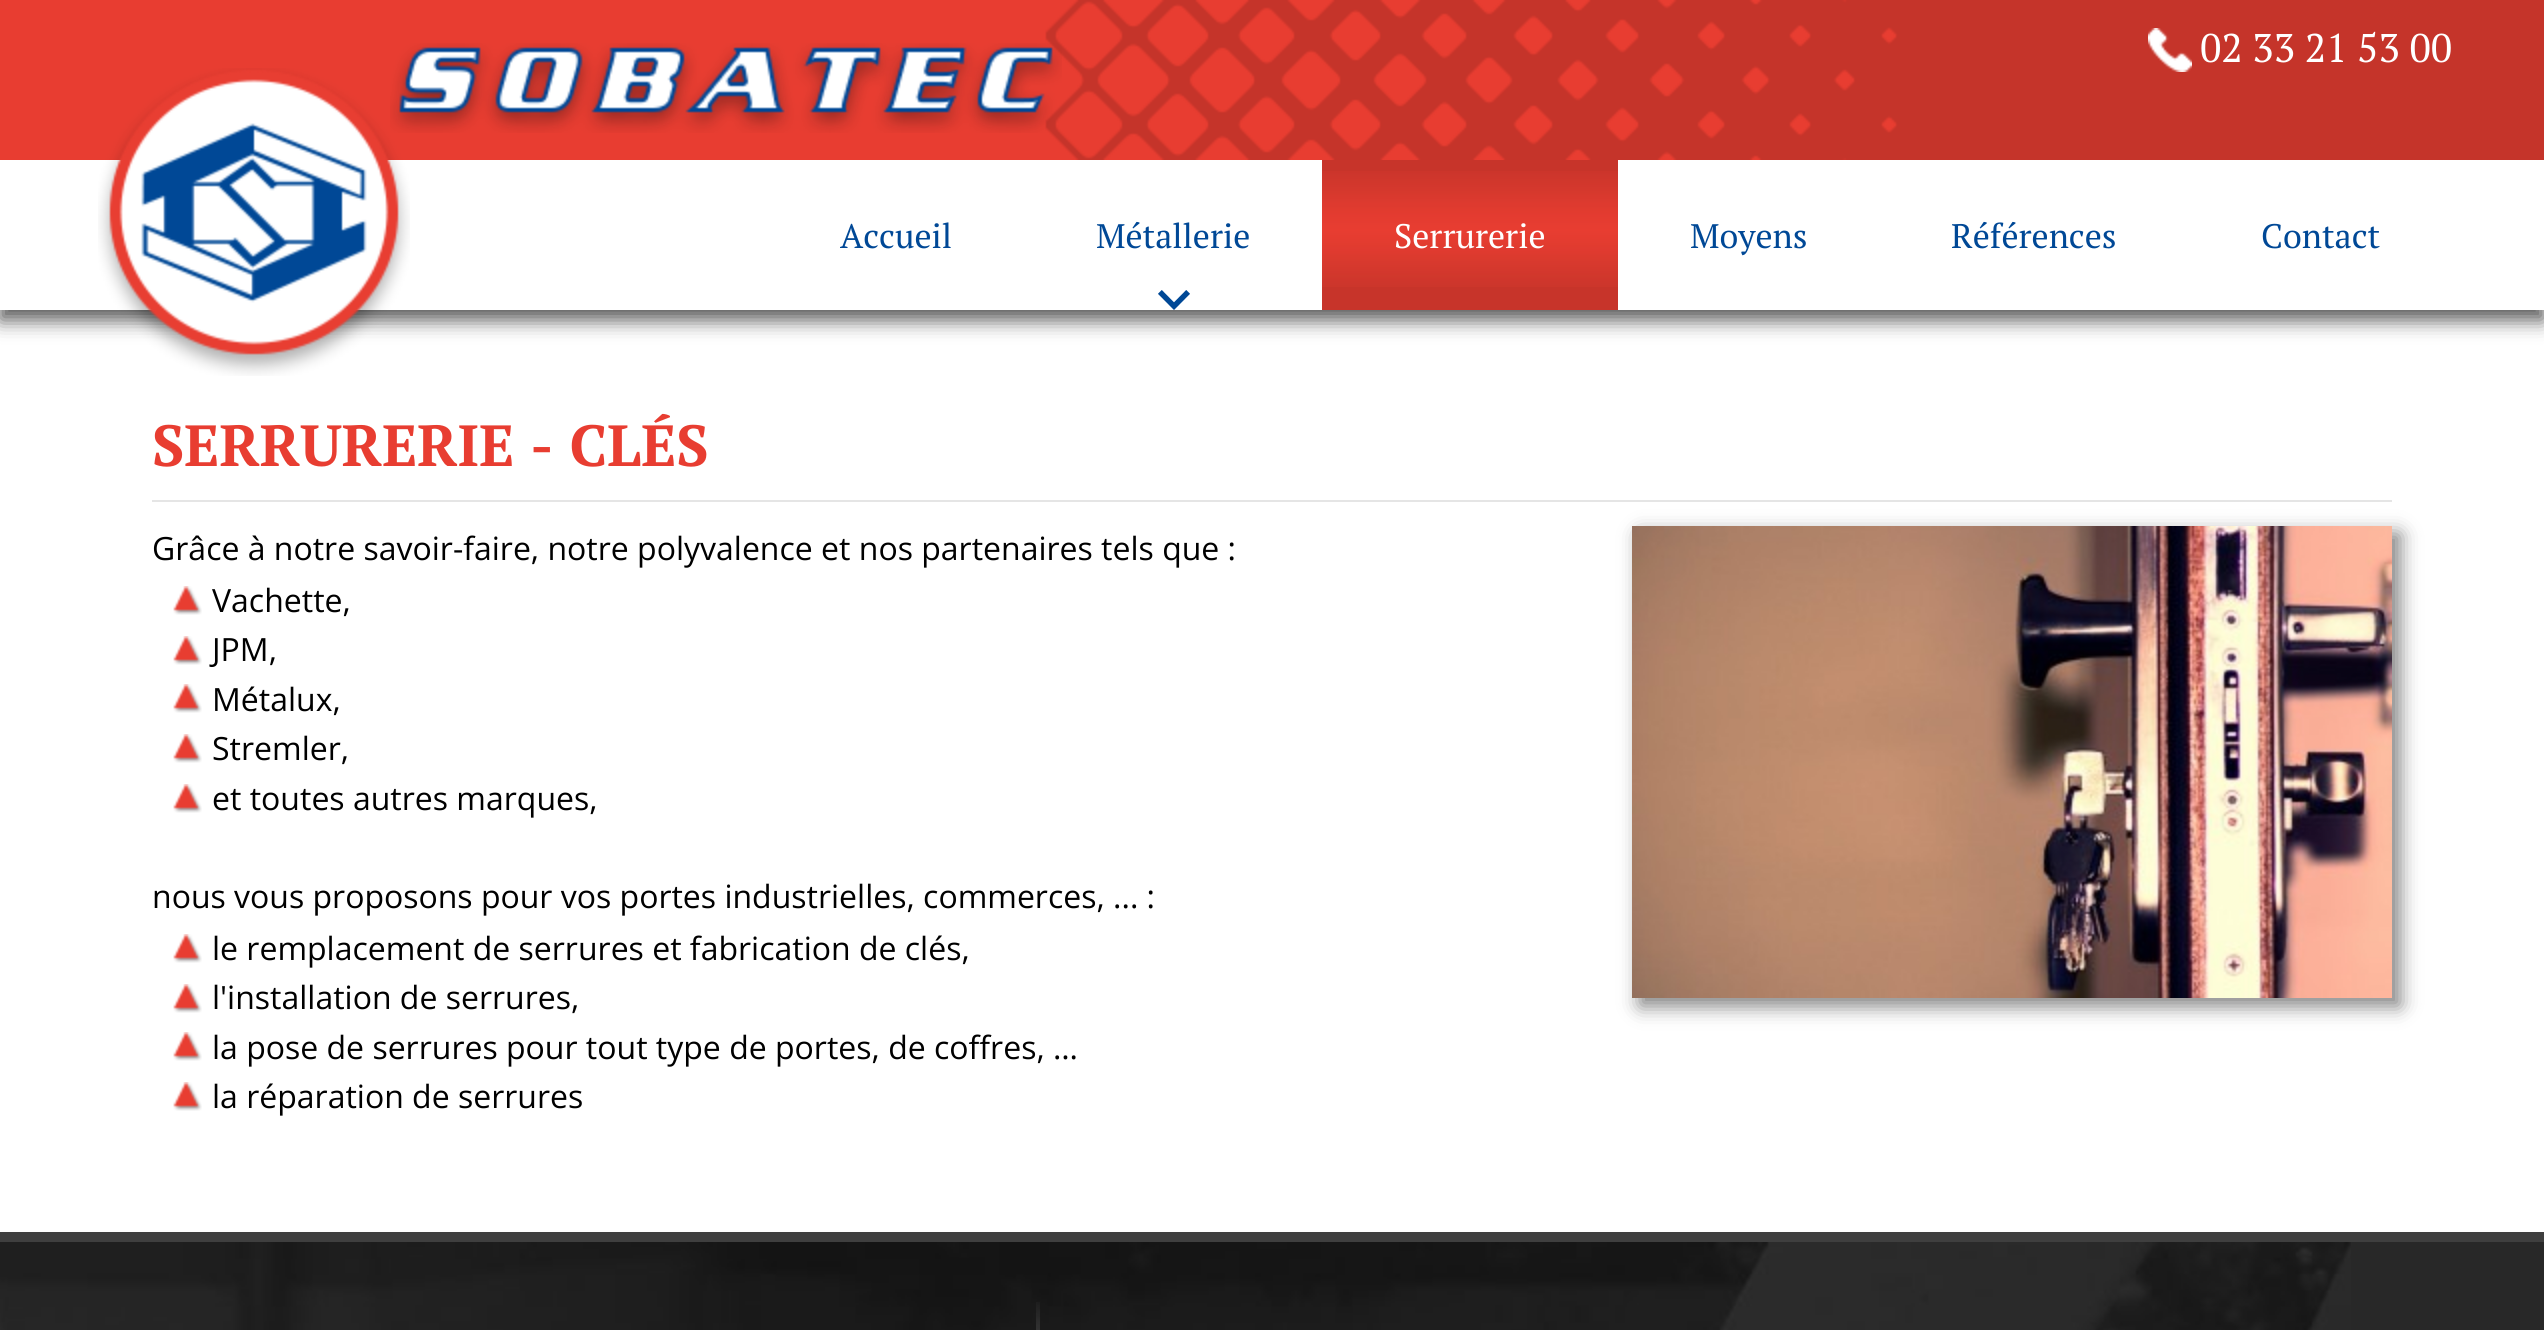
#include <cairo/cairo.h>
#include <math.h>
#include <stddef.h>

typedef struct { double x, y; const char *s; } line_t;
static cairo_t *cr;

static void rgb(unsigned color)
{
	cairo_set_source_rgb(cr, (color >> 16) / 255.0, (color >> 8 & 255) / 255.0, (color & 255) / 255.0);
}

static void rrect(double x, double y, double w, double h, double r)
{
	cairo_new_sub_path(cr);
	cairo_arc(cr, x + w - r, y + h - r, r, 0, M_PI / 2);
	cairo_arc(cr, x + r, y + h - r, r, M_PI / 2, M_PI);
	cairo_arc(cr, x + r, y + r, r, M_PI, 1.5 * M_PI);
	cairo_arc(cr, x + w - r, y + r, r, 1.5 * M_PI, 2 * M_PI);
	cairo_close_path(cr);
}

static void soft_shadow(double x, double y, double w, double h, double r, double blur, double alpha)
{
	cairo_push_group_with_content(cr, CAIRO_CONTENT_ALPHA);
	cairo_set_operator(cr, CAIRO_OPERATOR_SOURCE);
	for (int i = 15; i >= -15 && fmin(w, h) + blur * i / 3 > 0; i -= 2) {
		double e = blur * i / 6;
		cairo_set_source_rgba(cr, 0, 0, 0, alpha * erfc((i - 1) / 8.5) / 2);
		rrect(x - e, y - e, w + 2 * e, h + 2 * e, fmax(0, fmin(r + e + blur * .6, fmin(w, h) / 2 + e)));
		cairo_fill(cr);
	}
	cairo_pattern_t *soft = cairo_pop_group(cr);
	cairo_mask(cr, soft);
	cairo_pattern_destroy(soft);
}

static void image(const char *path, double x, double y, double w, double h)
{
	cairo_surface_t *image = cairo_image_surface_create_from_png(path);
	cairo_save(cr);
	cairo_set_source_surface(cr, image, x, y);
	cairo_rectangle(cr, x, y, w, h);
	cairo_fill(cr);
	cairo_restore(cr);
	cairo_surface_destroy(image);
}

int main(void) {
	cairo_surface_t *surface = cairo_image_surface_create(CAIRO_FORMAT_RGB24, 2544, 1330);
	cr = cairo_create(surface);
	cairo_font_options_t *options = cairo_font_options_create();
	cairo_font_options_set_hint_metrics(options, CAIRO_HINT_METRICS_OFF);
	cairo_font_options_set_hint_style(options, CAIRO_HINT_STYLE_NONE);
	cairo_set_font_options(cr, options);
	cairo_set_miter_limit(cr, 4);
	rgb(0x282828);
	cairo_paint(cr);
	rgb(0xffffff);
	cairo_rectangle(cr, 0, 310, 2544, 922);
	cairo_fill(cr);
	rgb(0x000000);
	soft_shadow(0, 10, 2544, 310, 0, 10, 0.66);
	rgb(0xe83d31);
	cairo_rectangle(cr, 0, 0, 1045, 160);
	cairo_fill(cr);
	image("img/1.png", 1045, 0, 1499, 160);
	image("img/3.png", 390, 43, 672, 90);
	rgb(0xffffff);
	cairo_rectangle(cr, 0, 160, 2544, 150);
	cairo_fill(cr);
	image("img/2.png", 98, 68, 312, 308);
	image("img/4.png", 2148, 28, 44, 44);
	image("img/5.png", 1158, 290, 32, 20);
	rgb(0xc7342a);
	cairo_rectangle(cr, 1322, 160, 296, 150);
	cairo_fill(cr);
	image("img/6.png", 1322, 171, 296, 116);
	rgb(0xe5e5e5);
	cairo_rectangle(cr, 152, 500, 2240, 2);
	cairo_fill(cr);
	rgb(0x000000);
	soft_shadow(1640, 534, 760, 472, 0, 10, 0.5);
	image("img/7.png", 1632, 526, 760, 472);
	image("img/8.png", 173, 586, 29, 29);
	image("img/8.png", 173, 636, 29, 29);
	image("img/8.png", 173, 684, 29, 29);
	image("img/8.png", 173, 734, 29, 29);
	image("img/8.png", 173, 784, 29, 29);
	image("img/8.png", 173, 934, 29, 29);
	image("img/8.png", 173, 984, 29, 29);
	image("img/8.png", 173, 1032, 29, 29);
	image("img/8.png", 173, 1082, 29, 29);
	image("img/9.png", 0, 1242, 2351, 88);
	rgb(0x3f3f3f);
	cairo_rectangle(cr, 0, 1232, 2544, 10);
	cairo_fill(cr);
	image("img/10.png", 1036, 1302, 4, 28);
	cairo_select_font_face(cr, "PT Serif", CAIRO_FONT_SLANT_NORMAL, CAIRO_FONT_WEIGHT_NORMAL);
	cairo_set_font_size(cr, 40);
	rgb(0xffffff);
	cairo_move_to(cr, 2200, 62);
	cairo_show_text(cr, "02 33 21 53 00");
	cairo_set_font_size(cr, 34);
	rgb(0x004896);
	cairo_move_to(cr, 840, 248);
	cairo_show_text(cr, "Accueil");
	cairo_move_to(cr, 1096, 248);
	cairo_show_text(cr, "Métallerie");
	rgb(0xffffff);
	cairo_move_to(cr, 1394, 248);
	cairo_show_text(cr, "Serrurerie");
	rgb(0x004896);
	{
		static const line_t items[] = {
			{1690, 248, "Moyens"},
			{1951, 248, "Références"},
			{2261, 248, "Contact"},
		};
		for (size_t i = 0; i < sizeof items / sizeof *items; i++) {
			cairo_move_to(cr, items[i].x, items[i].y);
			cairo_show_text(cr, items[i].s);
		}
	}
	cairo_select_font_face(cr, "PT Serif", CAIRO_FONT_SLANT_NORMAL, CAIRO_FONT_WEIGHT_BOLD);
	cairo_set_font_size(cr, 58);
	rgb(0xe83d31);
	cairo_move_to(cr, 152, 466);
	cairo_show_text(cr, "SERRURERIE - CLÉS");
	cairo_select_font_face(cr, "Open Sans", CAIRO_FONT_SLANT_NORMAL, CAIRO_FONT_WEIGHT_NORMAL);
	cairo_set_font_size(cr, 32);
	rgb(0x000000);
	{
		static const line_t items[] = {
			{152, 560, "Grâce à notre savoir-faire, notre polyvalence et nos partenaires tels que :"},
			{212, 612, "Vachette,"},
			{212, 661, "JPM,"},
			{212, 711, "Métalux,"},
			{212, 760, "Stremler,"},
			{212, 810, "et toutes autres marques,"},
			{152, 908, "nous vous proposons pour vos portes industrielles, commerces, ... :"},
			{212, 960, "le remplacement de serrures et fabrication de clés,"},
			{212, 1009, "l'installation de serrures,"},
			{212, 1059, "la pose de serrures pour tout type de portes, de coffres, …"},
			{212, 1108, "la réparation de serrures"},
		};
		for (size_t i = 0; i < sizeof items / sizeof *items; i++) {
			cairo_move_to(cr, items[i].x, items[i].y);
			cairo_show_text(cr, items[i].s);
		}
	}
	cairo_surface_write_to_png(surface, "page.png");
	cairo_font_options_destroy(options);
	cairo_destroy(cr);
	cairo_surface_destroy(surface);
	return 0;
}
